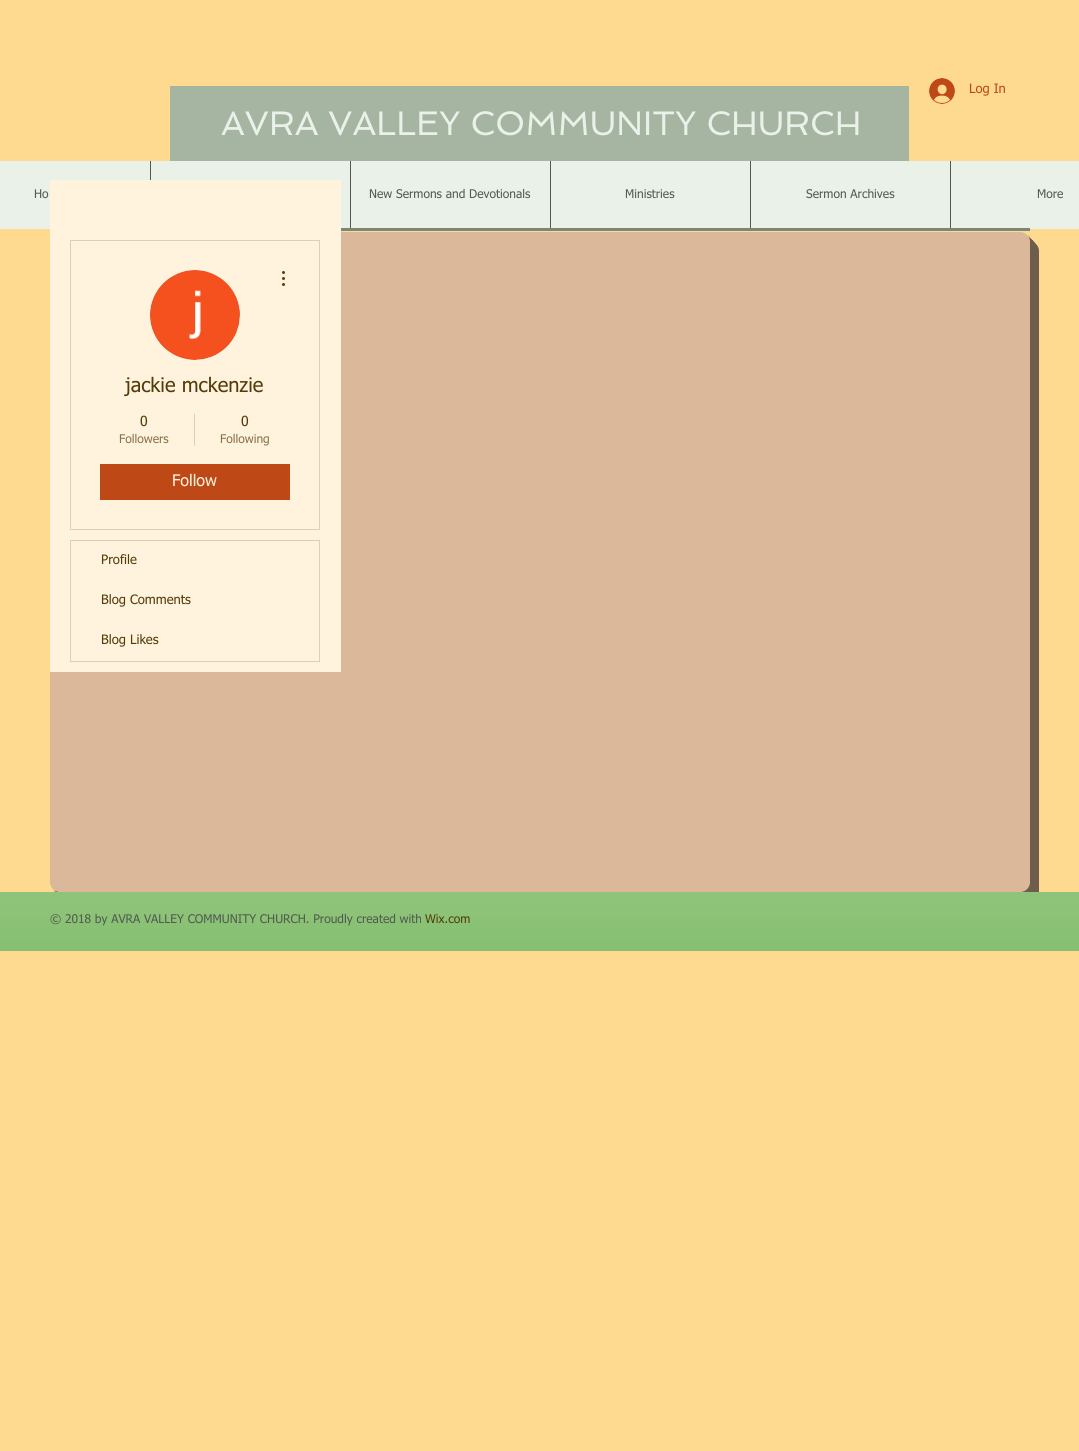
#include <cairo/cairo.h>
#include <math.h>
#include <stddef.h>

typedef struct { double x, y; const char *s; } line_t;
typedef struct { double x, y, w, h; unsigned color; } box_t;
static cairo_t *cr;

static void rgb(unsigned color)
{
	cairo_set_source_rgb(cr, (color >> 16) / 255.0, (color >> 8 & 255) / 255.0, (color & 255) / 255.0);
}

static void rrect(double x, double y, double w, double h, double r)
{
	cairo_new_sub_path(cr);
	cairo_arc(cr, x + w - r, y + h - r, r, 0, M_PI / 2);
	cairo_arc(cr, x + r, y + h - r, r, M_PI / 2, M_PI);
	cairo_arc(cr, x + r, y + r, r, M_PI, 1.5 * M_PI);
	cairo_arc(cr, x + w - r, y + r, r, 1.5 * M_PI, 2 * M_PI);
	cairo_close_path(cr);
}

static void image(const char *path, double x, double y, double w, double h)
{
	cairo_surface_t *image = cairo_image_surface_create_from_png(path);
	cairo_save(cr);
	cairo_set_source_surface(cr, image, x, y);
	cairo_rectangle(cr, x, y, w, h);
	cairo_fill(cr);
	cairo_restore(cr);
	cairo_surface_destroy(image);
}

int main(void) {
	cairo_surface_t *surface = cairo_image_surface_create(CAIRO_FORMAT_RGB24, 1079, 1451);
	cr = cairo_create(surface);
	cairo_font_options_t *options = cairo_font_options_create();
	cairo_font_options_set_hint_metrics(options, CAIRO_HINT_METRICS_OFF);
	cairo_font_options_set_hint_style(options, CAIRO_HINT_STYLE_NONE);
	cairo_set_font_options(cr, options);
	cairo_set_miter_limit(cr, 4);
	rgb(0xfdda8f);
	cairo_paint(cr);
	rgb(0xa5b5a2);
	cairo_rectangle(cr, 170, 86, 739, 75);
	cairo_fill(cr);
	image("img/1.png", 929, 78, 26, 26);
	{
		static const box_t items[] = {
			{0, 161, 1079, 68, 0xeaf1e9},
			{150, 161, 1, 19, 0x525a51},
			{350, 161, 1, 68, 0x525a51},
			{550, 161, 1, 68, 0x525a51},
			{750, 161, 1, 68, 0x525a51},
			{950, 161, 1, 68, 0x525a51},
		};
		for (size_t i = 0; i < sizeof items / sizeof *items; i++) {
			rgb(items[i].color);
			cairo_rectangle(cr, items[i].x, items[i].y, items[i].w, items[i].h);
			cairo_fill(cr);
		}
	}
	rgb(0x6e5c4d);
	cairo_new_path(cr);
	cairo_move_to(cr, 59, 892);
	cairo_curve_to(cr, 60, 897, 64, 901, 69, 901);
	cairo_line_to(cr, 1029, 901);
	cairo_curve_to(cr, 1035, 901, 1039, 897, 1039, 891);
	cairo_line_to(cr, 1039, 251);
	cairo_curve_to(cr, 1039, 246, 1035, 242, 1030, 241);
	cairo_line_to(cr, 1030, 882);
	cairo_curve_to(cr, 1030, 887, 1025, 892, 1020, 892);
	cairo_close_path(cr);
	cairo_fill(cr);
	cairo_new_path(cr);
	cairo_move_to(cr, 57, 892);
	cairo_curve_to(cr, 59, 896, 62, 899, 67, 899);
	cairo_line_to(cr, 1027, 899);
	cairo_curve_to(cr, 1033, 899, 1037, 895, 1037, 889);
	cairo_line_to(cr, 1037, 249);
	cairo_curve_to(cr, 1037, 244, 1034, 241, 1030, 239);
	cairo_line_to(cr, 1030, 242);
	cairo_line_to(cr, 1030, 882);
	cairo_curve_to(cr, 1030, 888, 1026, 892, 1020, 892);
	cairo_line_to(cr, 60, 892);
	cairo_close_path(cr);
	cairo_fill(cr);
	cairo_new_path(cr);
	cairo_move_to(cr, 56, 891);
	cairo_curve_to(cr, 57, 895, 61, 897, 65, 897);
	cairo_line_to(cr, 1025, 897);
	cairo_curve_to(cr, 1031, 897, 1035, 893, 1035, 887);
	cairo_line_to(cr, 1035, 247);
	cairo_curve_to(cr, 1035, 243, 1033, 239, 1029, 238);
	cairo_line_to(cr, 1030, 242);
	cairo_line_to(cr, 1030, 882);
	cairo_curve_to(cr, 1030, 888, 1026, 892, 1020, 892);
	cairo_line_to(cr, 60, 892);
	cairo_close_path(cr);
	cairo_fill(cr);
	cairo_new_path(cr);
	cairo_move_to(cr, 55, 890);
	cairo_curve_to(cr, 56, 893, 59, 895, 63, 895);
	cairo_line_to(cr, 1023, 895);
	cairo_curve_to(cr, 1029, 895, 1033, 891, 1033, 885);
	cairo_line_to(cr, 1033, 245);
	cairo_curve_to(cr, 1033, 241, 1031, 238, 1028, 237);
	cairo_curve_to(cr, 1029, 238, 1030, 240, 1030, 242);
	cairo_line_to(cr, 1030, 882);
	cairo_curve_to(cr, 1030, 888, 1026, 892, 1020, 892);
	cairo_line_to(cr, 60, 892);
	cairo_curve_to(cr, 58, 892, 56, 891, 55, 890);
	cairo_close_path(cr);
	cairo_fill(cr);
	cairo_new_path(cr);
	cairo_move_to(cr, 53, 890);
	cairo_curve_to(cr, 55, 892, 58, 893, 61, 893);
	cairo_line_to(cr, 1021, 893);
	cairo_curve_to(cr, 1027, 893, 1031, 889, 1031, 883);
	cairo_line_to(cr, 1031, 243);
	cairo_curve_to(cr, 1031, 240, 1030, 237, 1028, 235);
	cairo_curve_to(cr, 1029, 237, 1030, 239, 1030, 242);
	cairo_line_to(cr, 1030, 882);
	cairo_curve_to(cr, 1030, 888, 1026, 892, 1020, 892);
	cairo_line_to(cr, 60, 892);
	cairo_curve_to(cr, 57, 892, 55, 891, 53, 890);
	cairo_close_path(cr);
	cairo_fill(cr);
	rgb(0xdbb89a);
	rrect(50, 232, 980, 660, 10);
	cairo_fill(cr);
	rgb(0x7b877a);
	cairo_rectangle(cr, 341, 228, 689, 3);
	cairo_fill(cr);
	rgb(0xfff3de);
	cairo_rectangle(cr, 50, 180, 291, 492);
	cairo_fill(cr);
	cairo_rectangle(cr, 70.5, 240.5, 249, 289);
	rgb(0xddceb4);
	cairo_set_line_width(cr, 1);
	cairo_stroke(cr);
	rgb(0xd8d8d8);
	cairo_arc(cr, 195, 315, 45, 0, 2 * M_PI);
	cairo_fill(cr);
	image("img/2.png", 150, 270, 90, 90);
	image("img/3.png", 282, 271, 3, 15);
	rgb(0xddceb4);
	cairo_rectangle(cr, 194, 414, 1, 32);
	cairo_fill(cr);
	rgb(0xbf4916);
	cairo_rectangle(cr, 100, 464, 190, 36);
	cairo_fill(cr);
	cairo_rectangle(cr, 70.5, 540.5, 249, 121);
	rgb(0xddceb4);
	cairo_stroke(cr);
	rgb(0x68b04d);
	cairo_rectangle(cr, 0, 892, 1079, 59);
	cairo_fill(cr);
	image("img/4.png", 0, 892, 1079, 59);
	cairo_select_font_face(cr, "tahoma", CAIRO_FONT_SLANT_NORMAL, CAIRO_FONT_WEIGHT_NORMAL);
	cairo_set_font_size(cr, 13);
	rgb(0xbf4916);
	cairo_move_to(cr, 969, 93);
	cairo_show_text(cr, "Log In");
	cairo_select_font_face(cr, "Spinnaker", CAIRO_FONT_SLANT_NORMAL, CAIRO_FONT_WEIGHT_NORMAL);
	cairo_set_font_size(cr, 34);
	rgb(0xeaf1e9);
	cairo_move_to(cr, 221, 135);
	cairo_show_text(cr, "AVRA VALLEY COMMUNITY CHURCH");
	cairo_select_font_face(cr, "tahoma", CAIRO_FONT_SLANT_NORMAL, CAIRO_FONT_WEIGHT_NORMAL);
	cairo_set_font_size(cr, 12);
	rgb(0x525a51);
	{
		static const line_t items[] = {
			{34, 198, "Ho"},
			{369, 198, "New Sermons and Devotionals"},
			{625, 198, "Ministries"},
			{806, 198, "Sermon Archives"},
			{1037, 198, "More"},
		};
		for (size_t i = 0; i < sizeof items / sizeof *items; i++) {
			cairo_move_to(cr, items[i].x, items[i].y);
			cairo_show_text(cr, items[i].s);
		}
	}
	cairo_set_font_size(cr, 20);
	rgb(0x543c0a);
	cairo_move_to(cr, 125, 392);
	cairo_show_text(cr, "jackie mckenzie");
	cairo_set_font_size(cr, 14);
	cairo_move_to(cr, 140, 426);
	cairo_show_text(cr, "0");
	cairo_set_font_size(cr, 12);
	rgb(0x87734a);
	cairo_move_to(cr, 119, 443);
	cairo_show_text(cr, "Followers");
	cairo_set_font_size(cr, 14);
	rgb(0x543c0a);
	cairo_move_to(cr, 241, 426);
	cairo_show_text(cr, "0");
	cairo_set_font_size(cr, 12);
	rgb(0x87734a);
	cairo_move_to(cr, 220, 443);
	cairo_show_text(cr, "Following");
	cairo_set_font_size(cr, 16);
	rgb(0xfff3de);
	cairo_move_to(cr, 172, 486);
	cairo_show_text(cr, "Follow");
	cairo_set_font_size(cr, 13);
	rgb(0x543c0a);
	{
		static const line_t items[] = {
			{101, 564, "Profile"},
			{101, 604, "Blog Comments"},
			{101, 644, "Blog Likes"},
		};
		for (size_t i = 0; i < sizeof items / sizeof *items; i++) {
			cairo_move_to(cr, items[i].x, items[i].y);
			cairo_show_text(cr, items[i].s);
		}
	}
	cairo_set_font_size(cr, 12);
	rgb(0x525a51);
	cairo_move_to(cr, 50, 923);
	cairo_show_text(cr, "© 2018 by AVRA VALLEY COMMUNITY CHURCH. Proudly created with");
	rgb(0x543c0a);
	cairo_move_to(cr, 425, 923);
	cairo_show_text(cr, "Wix.com");
	cairo_surface_write_to_png(surface, "page.png");
	cairo_font_options_destroy(options);
	cairo_destroy(cr);
	cairo_surface_destroy(surface);
	return 0;
}
